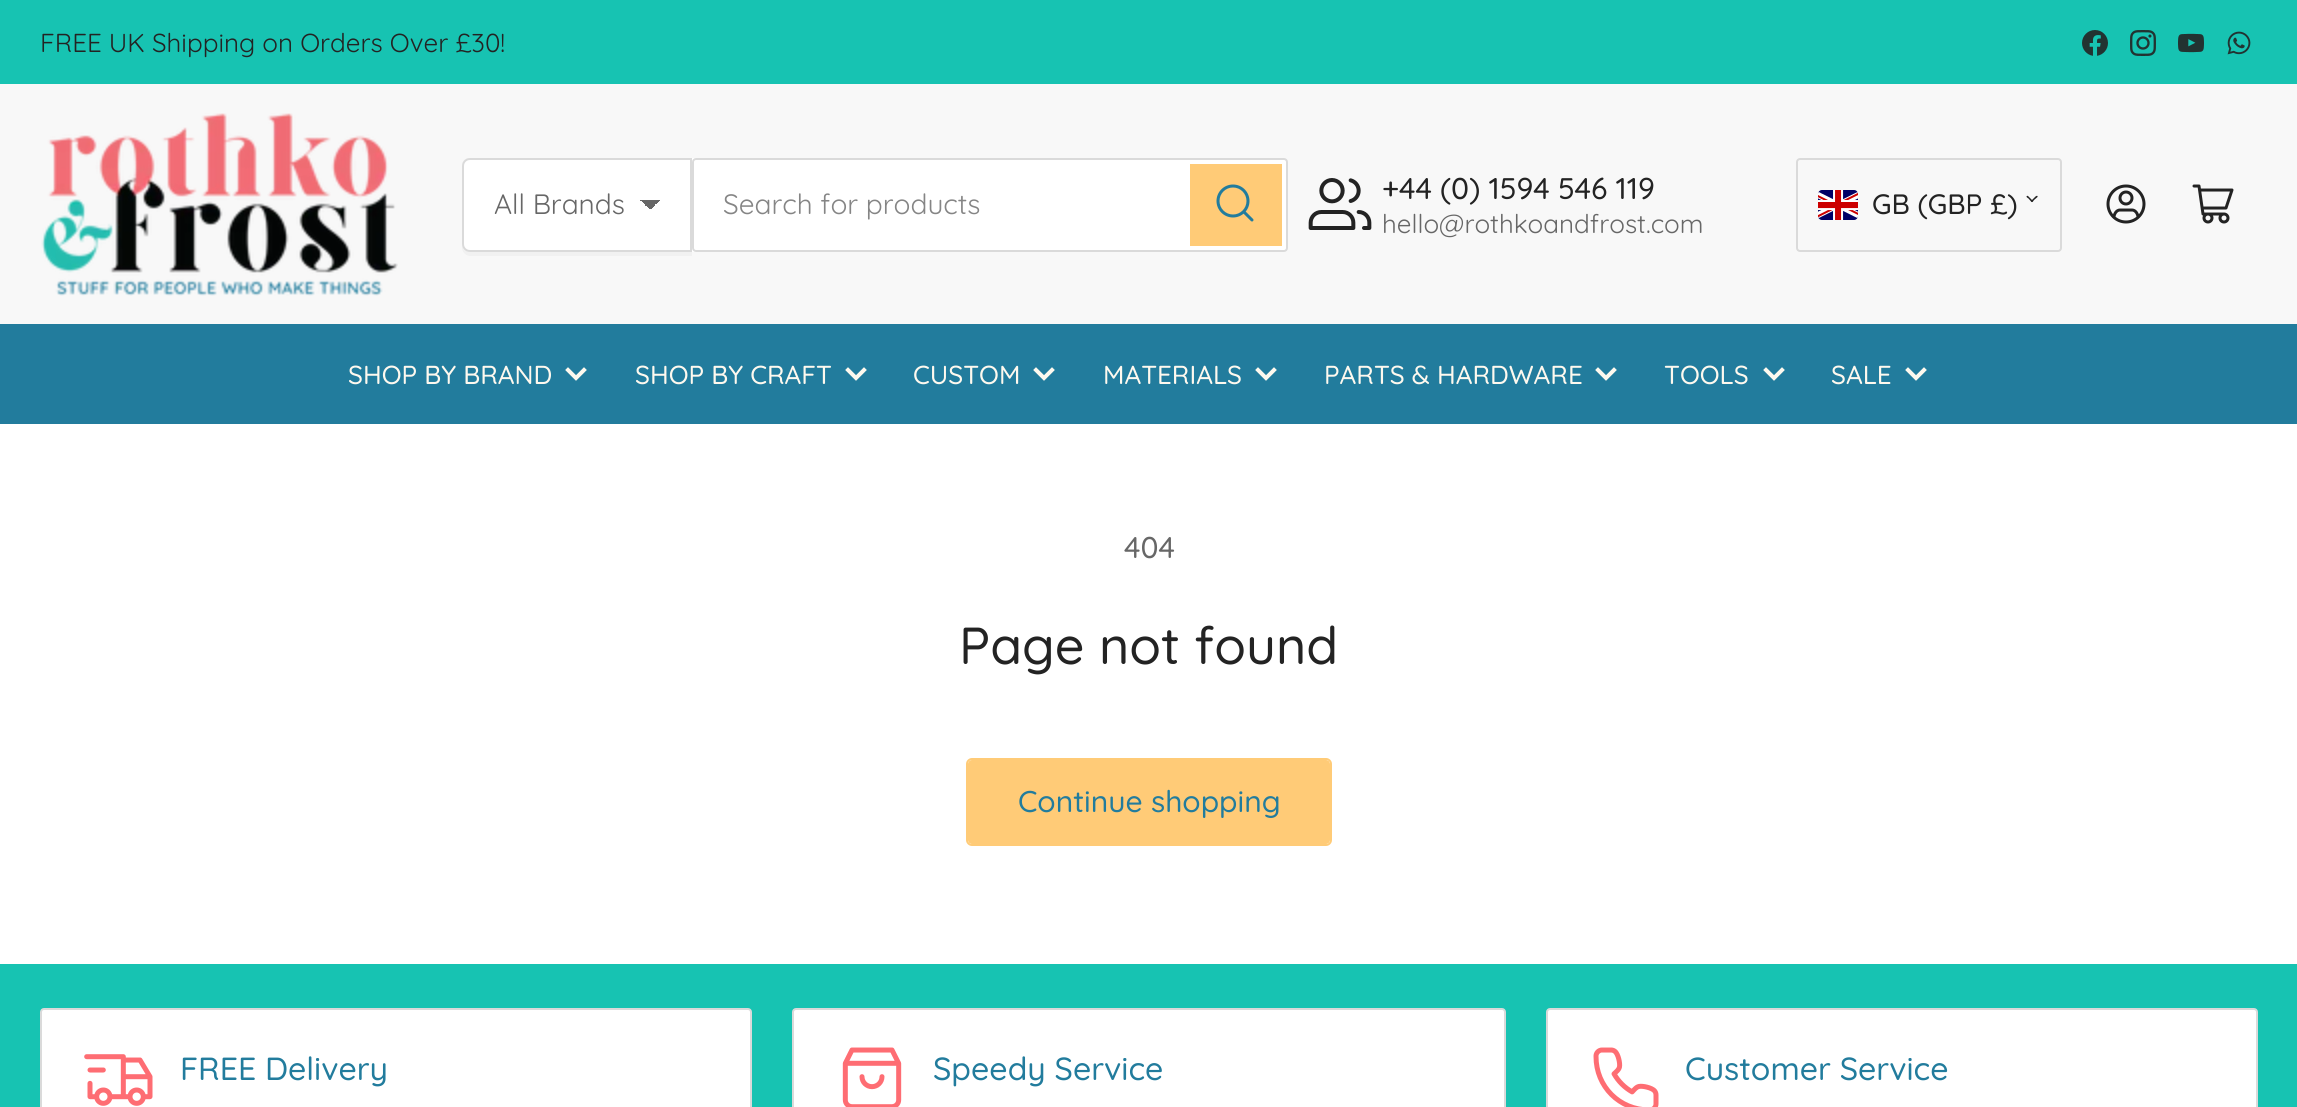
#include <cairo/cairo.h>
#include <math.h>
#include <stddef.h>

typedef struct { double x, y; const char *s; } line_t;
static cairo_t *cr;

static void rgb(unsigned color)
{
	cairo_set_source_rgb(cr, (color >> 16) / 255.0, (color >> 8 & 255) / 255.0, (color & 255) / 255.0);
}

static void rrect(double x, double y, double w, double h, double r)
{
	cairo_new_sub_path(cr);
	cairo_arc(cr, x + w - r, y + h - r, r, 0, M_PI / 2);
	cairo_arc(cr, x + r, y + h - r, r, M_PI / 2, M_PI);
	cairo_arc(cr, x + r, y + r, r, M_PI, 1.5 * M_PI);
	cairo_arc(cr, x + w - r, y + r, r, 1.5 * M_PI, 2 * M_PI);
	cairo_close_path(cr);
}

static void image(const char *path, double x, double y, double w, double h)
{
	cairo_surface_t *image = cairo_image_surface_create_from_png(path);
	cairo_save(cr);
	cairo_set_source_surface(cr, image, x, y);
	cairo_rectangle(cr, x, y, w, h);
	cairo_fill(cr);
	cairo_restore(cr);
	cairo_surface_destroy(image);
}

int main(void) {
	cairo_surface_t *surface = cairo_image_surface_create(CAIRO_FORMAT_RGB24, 2297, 1107);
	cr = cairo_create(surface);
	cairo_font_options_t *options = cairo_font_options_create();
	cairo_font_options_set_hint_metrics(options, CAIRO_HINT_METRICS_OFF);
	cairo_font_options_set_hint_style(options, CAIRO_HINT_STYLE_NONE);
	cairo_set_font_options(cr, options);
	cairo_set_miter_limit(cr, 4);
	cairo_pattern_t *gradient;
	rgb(0xffffff);
	cairo_paint(cr);
	rgb(0x17c3b2);
	cairo_rectangle(cr, 0, 0, 2297, 84);
	cairo_fill(cr);
	image("img/1.png", 2082, 30, 26, 26);
	image("img/2.png", 2130, 30, 26, 26);
	image("img/3.png", 2178, 33, 26, 20);
	image("img/4.png", 2227, 31, 24, 24);
	rgb(0xf8f8f8);
	cairo_rectangle(cr, 0, 84, 2297, 240);
	cairo_fill(cr);
	image("img/5.png", 41, 113, 357, 183);
	rgb(0xffffff);
	rrect(462, 158, 826, 94, 8);
	cairo_fill(cr);
	rrect(463, 159, 228, 92, 7);
	rgb(0xdadada);
	cairo_stroke(cr);
	cairo_set_source_rgba(cr, 0.855, 0.855, 0.855, 0.2);
	cairo_new_path(cr);
	cairo_move_to(cr, 462, 244);
	cairo_line_to(cr, 462, 248);
	cairo_curve_to(cr, 462, 252, 466, 256, 470, 256);
	cairo_line_to(cr, 692, 256);
	cairo_line_to(cr, 692, 252);
	cairo_line_to(cr, 470, 252);
	cairo_curve_to(cr, 466, 252, 462, 248, 462, 244);
	cairo_close_path(cr);
	cairo_fill(cr);
	rgb(0xffffff);
	cairo_new_path(cr);
	cairo_move_to(cr, 470, 158);
	cairo_line_to(cr, 692, 158);
	cairo_line_to(cr, 692, 252);
	cairo_line_to(cr, 470, 252);
	cairo_curve_to(cr, 465.5, 252, 462, 248.5, 462, 244);
	cairo_line_to(cr, 462, 166);
	cairo_curve_to(cr, 462, 161.5, 465.5, 158, 470, 158);
	cairo_close_path(cr);
	cairo_fill(cr);
	gradient = cairo_pattern_create_linear(650, 200, 660, 210);
	cairo_pattern_add_color_stop_rgba(gradient, 0.5, 0.404, 0.404, 0.404, 1);
	cairo_pattern_add_color_stop_rgba(gradient, 0.5, 1, 1, 1, 1);
	cairo_set_source(cr, gradient);
	cairo_pattern_destroy(gradient);
	cairo_rectangle(cr, 650, 200, 10, 9);
	cairo_fill(cr);
	gradient = cairo_pattern_create_linear(640, 210, 650, 200);
	cairo_pattern_add_color_stop_rgba(gradient, 0.5, 1, 1, 1, 1);
	cairo_pattern_add_color_stop_rgba(gradient, 0.5, 0.404, 0.404, 0.404, 1);
	cairo_set_source(cr, gradient);
	cairo_pattern_destroy(gradient);
	cairo_rectangle(cr, 640, 200, 10, 9);
	cairo_fill(cr);
	cairo_new_path(cr);
	cairo_move_to(cr, 470, 159);
	cairo_line_to(cr, 691, 159);
	cairo_line_to(cr, 691, 251);
	cairo_line_to(cr, 470, 251);
	cairo_curve_to(cr, 466, 251, 463, 248, 463, 244);
	cairo_line_to(cr, 463, 166);
	cairo_curve_to(cr, 463, 162, 466, 159, 470, 159);
	cairo_close_path(cr);
	rgb(0xdadada);
	cairo_stroke(cr);
	rgb(0xffffff);
	rrect(693, 159, 594, 92, 3);
	cairo_fill_preserve(cr);
	rgb(0xdadada);
	cairo_stroke(cr);
	cairo_rectangle(cr, 1191, 165, 90, 80);
	rgb(0xffcb77);
	cairo_stroke(cr);
	cairo_rectangle(cr, 1192, 166, 88, 78);
	cairo_fill(cr);
	image("img/6.png", 1216, 184, 38, 38);
	image("img/7.png", 1308, 178, 64, 52);
	rrect(1797, 159, 264, 92, 3);
	rgb(0xdadada);
	cairo_stroke(cr);
	image("img/8.png", 1818, 190, 40, 30);
	rgb(0x232323);
	cairo_new_path(cr);
	cairo_move_to(cr, 2028, 196);
	cairo_line_to(cr, 2031.5, 199.5);
	cairo_curve_to(cr, 2033, 201, 2033, 202.5, 2031.5, 202);
	cairo_line_to(cr, 2028.5, 198.5);
	cairo_curve_to(cr, 2028, 198, 2026.5, 197.5, 2026.5, 196.5);
	cairo_curve_to(cr, 2026.5, 196, 2027.5, 195.5, 2028, 196);
	cairo_close_path(cr);
	cairo_fill(cr);
	cairo_new_path(cr);
	cairo_move_to(cr, 2031.5, 200.5);
	cairo_line_to(cr, 2035.5, 196.5);
	cairo_curve_to(cr, 2036.5, 195.5, 2038, 195.5, 2037.5, 197);
	cairo_line_to(cr, 2034, 200);
	cairo_curve_to(cr, 2033.5, 200.5, 2033, 202, 2032, 202);
	cairo_curve_to(cr, 2031.5, 201.5, 2031, 201, 2031.5, 200.5);
	cairo_close_path(cr);
	cairo_fill(cr);
	image("img/9.png", 2106, 184, 40, 40);
	image("img/10.png", 2192, 184, 42, 40);
	rgb(0x227c9d);
	cairo_rectangle(cr, 0, 324, 2297, 100);
	cairo_fill(cr);
	cairo_new_path(cr);
	cairo_move_to(cr, 584, 370);
	cairo_line_to(cr, 576, 378);
	cairo_line_to(cr, 568, 370);
	rgb(0xfef9ef);
	cairo_set_line_width(cr, 4);
	cairo_set_line_cap(cr, CAIRO_LINE_CAP_SQUARE);
	cairo_stroke(cr);
	cairo_new_path(cr);
	cairo_move_to(cr, 864, 370);
	cairo_line_to(cr, 856, 378);
	cairo_line_to(cr, 848, 370);
	cairo_stroke(cr);
	cairo_new_path(cr);
	cairo_move_to(cr, 1052, 370);
	cairo_line_to(cr, 1044, 378);
	cairo_line_to(cr, 1036, 370);
	cairo_stroke(cr);
	cairo_new_path(cr);
	cairo_move_to(cr, 1274, 370);
	cairo_line_to(cr, 1266, 378);
	cairo_line_to(cr, 1258, 370);
	cairo_stroke(cr);
	cairo_new_path(cr);
	cairo_move_to(cr, 1614, 370);
	cairo_line_to(cr, 1606, 378);
	cairo_line_to(cr, 1598, 370);
	cairo_stroke(cr);
	cairo_new_path(cr);
	cairo_move_to(cr, 1782, 370);
	cairo_line_to(cr, 1774, 378);
	cairo_line_to(cr, 1766, 370);
	cairo_stroke(cr);
	cairo_new_path(cr);
	cairo_move_to(cr, 1924, 370);
	cairo_line_to(cr, 1916, 378);
	cairo_line_to(cr, 1908, 370);
	cairo_stroke(cr);
	rrect(967, 759, 364, 86, 5);
	rgb(0xffcb77);
	cairo_set_line_width(cr, 2);
	cairo_set_line_cap(cr, CAIRO_LINE_CAP_BUTT);
	cairo_stroke(cr);
	rrect(968, 760, 362, 84, 4);
	cairo_fill(cr);
	rgb(0x17c3b2);
	cairo_rectangle(cr, 0, 964, 2297, 143);
	cairo_fill(cr);
	rgb(0xffffff);
	rrect(41, 1009, 710, 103, 3);
	cairo_fill_preserve(cr);
	rgb(0xdadada);
	cairo_stroke(cr);
	image("img/11.png", 84, 1054, 69, 52);
	rgb(0xffffff);
	rrect(793, 1009, 712, 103, 3);
	cairo_fill_preserve(cr);
	rgb(0xdadada);
	cairo_stroke(cr);
	image("img/12.png", 842, 1047, 60, 60);
	rgb(0xffffff);
	rrect(1547, 1009, 710, 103, 3);
	cairo_fill_preserve(cr);
	rgb(0xdadada);
	cairo_stroke(cr);
	image("img/13.png", 1593, 1047, 66, 60);
	cairo_select_font_face(cr, "Quicksand", CAIRO_FONT_SLANT_NORMAL, CAIRO_FONT_WEIGHT_NORMAL);
	cairo_set_font_size(cr, 26);
	rgb(0x232323);
	cairo_move_to(cr, 40, 52);
	cairo_show_text(cr, "FREE UK Shipping on Orders Over £30!");
	cairo_set_font_size(cr, 28);
	rgb(0x676767);
	cairo_move_to(cr, 494, 214);
	cairo_show_text(cr, "All Brands");
	rgb(0x858585);
	cairo_move_to(cr, 723, 214);
	cairo_show_text(cr, "Search for products");
	cairo_select_font_face(cr, "Quicksand Medium", CAIRO_FONT_SLANT_NORMAL, CAIRO_FONT_WEIGHT_NORMAL);
	cairo_set_font_size(cr, 30);
	rgb(0x232323);
	cairo_move_to(cr, 1382, 199);
	cairo_show_text(cr, "+44 (0) 1594 546 119");
	cairo_select_font_face(cr, "Quicksand", CAIRO_FONT_SLANT_NORMAL, CAIRO_FONT_WEIGHT_NORMAL);
	cairo_set_font_size(cr, 26);
	rgb(0x676767);
	cairo_move_to(cr, 1382, 233);
	cairo_show_text(cr, "hello@rothkoandfrost.com");
	cairo_select_font_face(cr, "Quicksand Medium", CAIRO_FONT_SLANT_NORMAL, CAIRO_FONT_WEIGHT_NORMAL);
	cairo_set_font_size(cr, 28);
	rgb(0x232323);
	cairo_move_to(cr, 1872, 214);
	cairo_show_text(cr, "GB (GBP £)");
	cairo_set_font_size(cr, 26);
	rgb(0xfef9ef);
	{
		static const line_t items[] = {
			{348, 384, "SHOP BY BRAND"},
			{635, 384, "SHOP BY CRAFT"},
			{913, 384, "CUSTOM"},
			{1103, 384, "MATERIALS"},
			{1324, 384, "PARTS & HARDWARE"},
			{1664, 384, "TOOLS"},
			{1831, 384, "SALE"},
		};
		for (size_t i = 0; i < sizeof items / sizeof *items; i++) {
			cairo_move_to(cr, items[i].x, items[i].y);
			cairo_show_text(cr, items[i].s);
		}
	}
	cairo_set_font_size(cr, 30);
	rgb(0x676767);
	cairo_move_to(cr, 1124, 558);
	cairo_show_text(cr, "404");
	cairo_set_font_size(cr, 52);
	rgb(0x232323);
	cairo_move_to(cr, 959, 664);
	cairo_show_text(cr, "Page not found");
	cairo_set_font_size(cr, 30);
	rgb(0x227c9d);
	cairo_move_to(cr, 1018, 812);
	cairo_show_text(cr, "Continue shopping");
	cairo_set_font_size(cr, 32);
	{
		static const line_t items[] = {
			{180, 1080, "FREE Delivery"},
			{933, 1080, "Speedy Service"},
			{1685, 1080, "Customer Service"},
		};
		for (size_t i = 0; i < sizeof items / sizeof *items; i++) {
			cairo_move_to(cr, items[i].x, items[i].y);
			cairo_show_text(cr, items[i].s);
		}
	}
	cairo_surface_write_to_png(surface, "page.png");
	cairo_font_options_destroy(options);
	cairo_destroy(cr);
	cairo_surface_destroy(surface);
	return 0;
}
